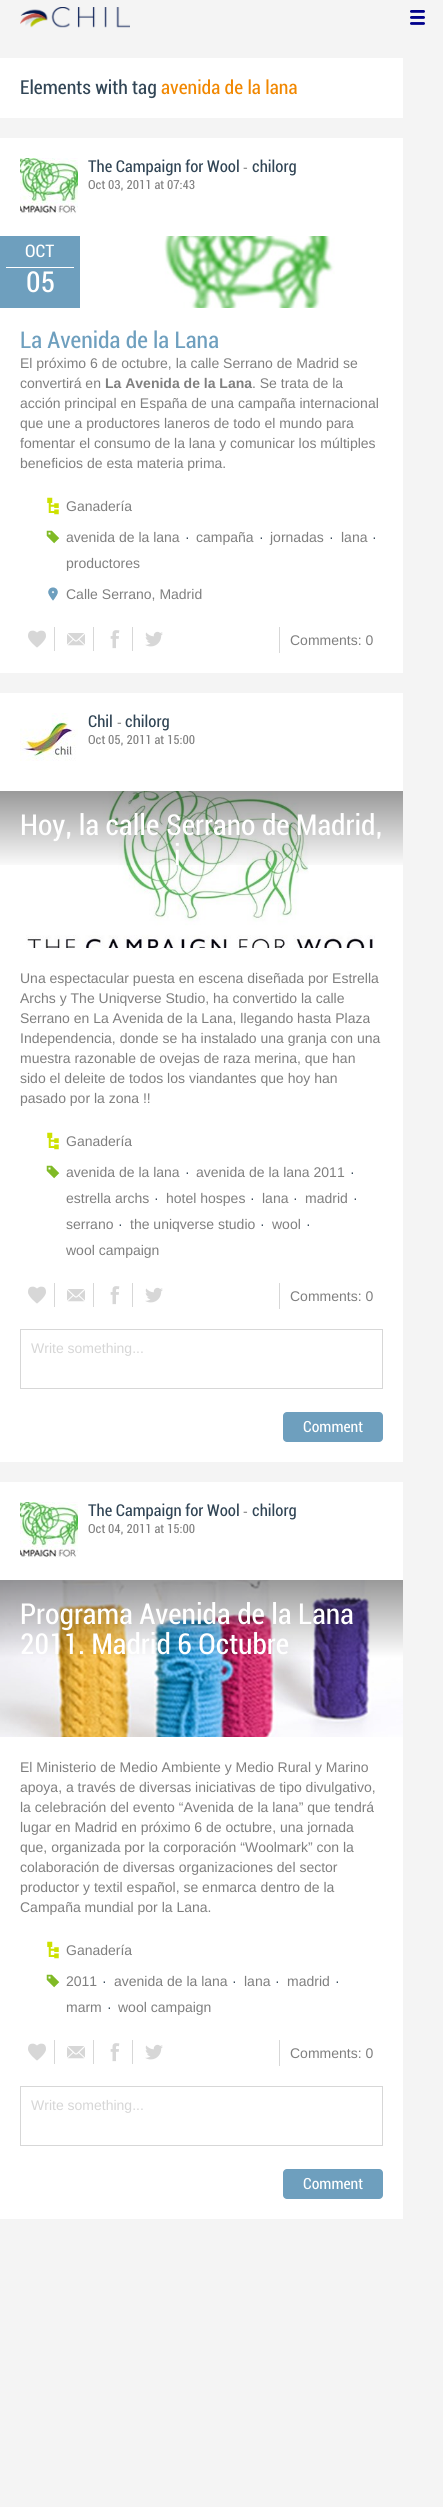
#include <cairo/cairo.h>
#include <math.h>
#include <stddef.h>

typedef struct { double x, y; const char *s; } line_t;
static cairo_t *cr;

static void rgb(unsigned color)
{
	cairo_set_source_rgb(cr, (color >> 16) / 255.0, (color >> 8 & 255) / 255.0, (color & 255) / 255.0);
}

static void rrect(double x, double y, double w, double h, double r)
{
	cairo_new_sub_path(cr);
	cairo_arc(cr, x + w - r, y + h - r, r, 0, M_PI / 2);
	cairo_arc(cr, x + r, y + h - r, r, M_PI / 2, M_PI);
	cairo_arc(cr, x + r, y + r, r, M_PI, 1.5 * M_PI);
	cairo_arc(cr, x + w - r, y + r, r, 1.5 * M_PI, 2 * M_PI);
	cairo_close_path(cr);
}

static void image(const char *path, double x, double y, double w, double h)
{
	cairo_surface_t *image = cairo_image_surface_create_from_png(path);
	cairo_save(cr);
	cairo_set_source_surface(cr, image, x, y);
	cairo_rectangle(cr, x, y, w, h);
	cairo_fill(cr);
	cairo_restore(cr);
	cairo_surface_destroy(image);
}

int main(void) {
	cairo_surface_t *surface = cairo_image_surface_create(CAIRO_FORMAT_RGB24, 443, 2507);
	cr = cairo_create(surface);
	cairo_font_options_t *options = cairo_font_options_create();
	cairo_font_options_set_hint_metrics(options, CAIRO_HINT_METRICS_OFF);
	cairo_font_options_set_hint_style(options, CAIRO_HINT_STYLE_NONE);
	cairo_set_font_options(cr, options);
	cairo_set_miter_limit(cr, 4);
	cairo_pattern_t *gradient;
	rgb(0xf4f4f4);
	cairo_paint(cr);
	image("img/1.png", 20, 7, 110, 21);
	image("img/2.png", 410, 10, 15, 15);
	rgb(0xffffff);
	cairo_rectangle(cr, 0, 58, 403, 60);
	cairo_fill(cr);
	cairo_rectangle(cr, 0, 138, 403, 535);
	cairo_fill(cr);
	image("img/3.png", 20, 158, 58, 56);
	rgb(0x6e9fbe);
	cairo_rectangle(cr, 0, 236, 80, 72);
	cairo_fill(cr);
	rgb(0xffffff);
	cairo_rectangle(cr, 6, 267, 68, 1);
	cairo_fill(cr);
	image("img/4.png", 164, 236, 171, 72);
	image("img/5.png", 47, 497, 12, 18);
	image("img/6.png", 46, 530, 14, 14);
	image("img/7.png", 48, 587, 10, 14);
	rgb(0xd7d7d7);
	cairo_rectangle(cr, 54, 627, 1, 24);
	cairo_fill(cr);
	image("img/8.png", 28, 630, 18, 18);
	cairo_rectangle(cr, 93, 627, 1, 24);
	cairo_fill(cr);
	image("img/9.png", 67, 633, 18, 13);
	cairo_rectangle(cr, 132, 627, 1, 24);
	cairo_fill(cr);
	image("img/10.png", 110, 630, 10, 19);
	image("img/11.png", 145, 631, 18, 16);
	cairo_rectangle(cr, 279, 627, 1, 26);
	cairo_fill(cr);
	rgb(0xffffff);
	cairo_rectangle(cr, 0, 693, 403, 769);
	cairo_fill(cr);
	image("img/12.png", 20, 713, 58, 48);
	image("img/13.png", 26, 791, 349, 157);
	gradient = cairo_pattern_create_linear(202, 791, 202, 869);
	cairo_pattern_add_color_stop_rgba(gradient, 0, 0, 0, 0, 0.4);
	cairo_pattern_add_color_stop_rgba(gradient, 1, 0, 0, 0, 0);
	cairo_set_source(cr, gradient);
	cairo_pattern_destroy(gradient);
	cairo_rectangle(cr, 0, 791, 403, 74);
	cairo_fill(cr);
	image("img/5.png", 47, 1132, 12, 18);
	image("img/6.png", 46, 1165, 14, 14);
	rgb(0xd7d7d7);
	cairo_rectangle(cr, 54, 1283, 1, 24);
	cairo_fill(cr);
	image("img/8.png", 28, 1286, 18, 18);
	cairo_rectangle(cr, 93, 1283, 1, 24);
	cairo_fill(cr);
	image("img/9.png", 67, 1289, 18, 13);
	cairo_rectangle(cr, 132, 1283, 1, 24);
	cairo_fill(cr);
	image("img/10.png", 110, 1286, 10, 19);
	image("img/11.png", 145, 1287, 18, 16);
	cairo_rectangle(cr, 279, 1283, 1, 26);
	cairo_fill(cr);
	cairo_rectangle(cr, 20.5, 1329.5, 362, 59);
	cairo_set_line_width(cr, 1);
	cairo_stroke(cr);
	rgb(0x6e9fbe);
	rrect(283, 1412, 100, 30, 4);
	cairo_fill(cr);
	rgb(0xffffff);
	cairo_rectangle(cr, 0, 1482, 403, 737);
	cairo_fill(cr);
	image("img/3.png", 20, 1502, 58, 56);
	image("img/14.png", 0, 1580, 403, 157);
	image("img/5.png", 47, 1941, 12, 18);
	image("img/6.png", 46, 1974, 14, 14);
	rgb(0xd7d7d7);
	cairo_rectangle(cr, 54, 2040, 1, 24);
	cairo_fill(cr);
	image("img/8.png", 28, 2043, 18, 18);
	cairo_rectangle(cr, 93, 2040, 1, 24);
	cairo_fill(cr);
	image("img/9.png", 67, 2046, 18, 13);
	cairo_rectangle(cr, 132, 2040, 1, 24);
	cairo_fill(cr);
	image("img/10.png", 110, 2043, 10, 19);
	image("img/11.png", 145, 2044, 18, 16);
	cairo_rectangle(cr, 279, 2040, 1, 26);
	cairo_fill(cr);
	cairo_rectangle(cr, 20.5, 2086.5, 362, 59);
	cairo_stroke(cr);
	rgb(0x6e9fbe);
	rrect(283, 2169, 100, 30, 4);
	cairo_fill(cr);
	cairo_select_font_face(cr, "Roboto", CAIRO_FONT_SLANT_NORMAL, CAIRO_FONT_WEIGHT_NORMAL);
	cairo_set_font_size(cr, 20);
	rgb(0x314555);
	cairo_move_to(cr, 20, 94);
	cairo_show_text(cr, "Elements with tag");
	rgb(0xf18700);
	cairo_move_to(cr, 161, 94);
	cairo_show_text(cr, "avenida de la lana");
	cairo_set_font_size(cr, 17);
	rgb(0x314555);
	cairo_move_to(cr, 88, 172);
	cairo_show_text(cr, "The Campaign for Wool");
	cairo_select_font_face(cr, "Liberation Sans", CAIRO_FONT_SLANT_NORMAL, CAIRO_FONT_WEIGHT_NORMAL);
	cairo_set_font_size(cr, 14);
	rgb(0x7f7f7f);
	cairo_move_to(cr, 243, 172);
	cairo_show_text(cr, "-");
	cairo_select_font_face(cr, "Roboto", CAIRO_FONT_SLANT_NORMAL, CAIRO_FONT_WEIGHT_NORMAL);
	cairo_set_font_size(cr, 17);
	rgb(0x314555);
	cairo_move_to(cr, 252, 172);
	cairo_show_text(cr, "chilorg");
	cairo_set_font_size(cr, 13);
	rgb(0x7f7f7f);
	cairo_move_to(cr, 88, 189);
	cairo_show_text(cr, "Oct 03, 2011 at 07:43");
	cairo_set_font_size(cr, 18);
	rgb(0xffffff);
	cairo_move_to(cr, 25, 257);
	cairo_show_text(cr, "OCT");
	cairo_set_font_size(cr, 30);
	cairo_move_to(cr, 26, 292);
	cairo_show_text(cr, "05");
	cairo_set_font_size(cr, 24);
	rgb(0x6e9fbe);
	cairo_move_to(cr, 20, 348);
	cairo_show_text(cr, "La Avenida de la Lana");
	cairo_select_font_face(cr, "Liberation Sans", CAIRO_FONT_SLANT_NORMAL, CAIRO_FONT_WEIGHT_NORMAL);
	cairo_set_font_size(cr, 14);
	rgb(0x7f7f7f);
	cairo_move_to(cr, 20, 368);
	cairo_show_text(cr, "El próximo 6 de octubre, la calle Serrano de Madrid se");
	cairo_move_to(cr, 20, 388);
	cairo_show_text(cr, "convertirá en");
	cairo_select_font_face(cr, "Liberation Sans", CAIRO_FONT_SLANT_NORMAL, CAIRO_FONT_WEIGHT_BOLD);
	cairo_move_to(cr, 105, 388);
	cairo_show_text(cr, "La Avenida de la Lana");
	cairo_select_font_face(cr, "Liberation Sans", CAIRO_FONT_SLANT_NORMAL, CAIRO_FONT_WEIGHT_NORMAL);
	{
		static const line_t items[] = {
			{252, 388, ". Se trata de la"},
			{20, 408, "acción principal en España de una campaña internacional"},
			{20, 428, "que une a productores laneros de todo el mundo para"},
			{20, 448, "fomentar el consumo de la lana y comunicar los múltiples"},
			{20, 468, "beneficios de esta materia prima."},
			{66, 511, "Ganadería"},
			{66, 542, "avenida de la lana"},
		};
		for (size_t i = 0; i < sizeof items / sizeof *items; i++) {
			cairo_move_to(cr, items[i].x, items[i].y);
			cairo_show_text(cr, items[i].s);
		}
	}
	rgb(0x314555);
	cairo_move_to(cr, 185, 542);
	cairo_show_text(cr, "·");
	rgb(0x7f7f7f);
	cairo_move_to(cr, 196, 542);
	cairo_show_text(cr, "campaña");
	rgb(0x314555);
	cairo_move_to(cr, 259, 542);
	cairo_show_text(cr, "·");
	rgb(0x7f7f7f);
	cairo_move_to(cr, 270, 542);
	cairo_show_text(cr, "jornadas");
	rgb(0x314555);
	cairo_move_to(cr, 329, 542);
	cairo_show_text(cr, "·");
	rgb(0x7f7f7f);
	cairo_move_to(cr, 341, 542);
	cairo_show_text(cr, "lana");
	rgb(0x314555);
	cairo_move_to(cr, 372, 542);
	cairo_show_text(cr, "·");
	rgb(0x7f7f7f);
	{
		static const line_t items[] = {
			{66, 568, "productores"},
			{66, 599, "Calle Serrano, Madrid"},
			{290, 645, "Comments: 0"},
		};
		for (size_t i = 0; i < sizeof items / sizeof *items; i++) {
			cairo_move_to(cr, items[i].x, items[i].y);
			cairo_show_text(cr, items[i].s);
		}
	}
	cairo_select_font_face(cr, "Roboto", CAIRO_FONT_SLANT_NORMAL, CAIRO_FONT_WEIGHT_NORMAL);
	cairo_set_font_size(cr, 17);
	rgb(0x314555);
	cairo_move_to(cr, 88, 727);
	cairo_show_text(cr, "Chil");
	cairo_select_font_face(cr, "Liberation Sans", CAIRO_FONT_SLANT_NORMAL, CAIRO_FONT_WEIGHT_NORMAL);
	cairo_set_font_size(cr, 14);
	rgb(0x7f7f7f);
	cairo_move_to(cr, 117, 727);
	cairo_show_text(cr, "-");
	cairo_select_font_face(cr, "Roboto", CAIRO_FONT_SLANT_NORMAL, CAIRO_FONT_WEIGHT_NORMAL);
	cairo_set_font_size(cr, 17);
	rgb(0x314555);
	cairo_move_to(cr, 125, 727);
	cairo_show_text(cr, "chilorg");
	cairo_set_font_size(cr, 13);
	rgb(0x7f7f7f);
	cairo_move_to(cr, 88, 744);
	cairo_show_text(cr, "Oct 05, 2011 at 15:00");
	cairo_set_font_size(cr, 30);
	rgb(0xffffff);
	cairo_move_to(cr, 20, 835);
	cairo_show_text(cr, "Hoy, la calle Serrano de Madrid,");
	cairo_move_to(cr, 174, 865);
	cairo_show_text(cr, "i");
	cairo_select_font_face(cr, "Liberation Sans", CAIRO_FONT_SLANT_NORMAL, CAIRO_FONT_WEIGHT_NORMAL);
	cairo_set_font_size(cr, 14);
	rgb(0x7f7f7f);
	{
		static const line_t items[] = {
			{20, 983, "Una espectacular puesta en escena diseñada por Estrella"},
			{20, 1003, "Archs y The Uniqverse Studio, ha convertido la calle"},
			{20, 1023, "Serrano en La Avenida de la Lana, llegando hasta Plaza"},
			{20, 1043, "Independencia, donde se ha instalado una granja con una"},
			{20, 1063, "muestra razonable de ovejas de raza merina, que han"},
			{20, 1083, "sido el deleite de todos los viandantes que hoy han"},
			{20, 1103, "pasado por la zona !!"},
			{66, 1146, "Ganadería"},
			{66, 1177, "avenida de la lana"},
		};
		for (size_t i = 0; i < sizeof items / sizeof *items; i++) {
			cairo_move_to(cr, items[i].x, items[i].y);
			cairo_show_text(cr, items[i].s);
		}
	}
	rgb(0x314555);
	cairo_move_to(cr, 185, 1177);
	cairo_show_text(cr, "·");
	rgb(0x7f7f7f);
	cairo_move_to(cr, 196, 1177);
	cairo_show_text(cr, "avenida de la lana 2011");
	rgb(0x314555);
	cairo_move_to(cr, 350, 1177);
	cairo_show_text(cr, "·");
	rgb(0x7f7f7f);
	cairo_move_to(cr, 66, 1203);
	cairo_show_text(cr, "estrella archs");
	rgb(0x314555);
	cairo_move_to(cr, 154, 1203);
	cairo_show_text(cr, "·");
	rgb(0x7f7f7f);
	cairo_move_to(cr, 166, 1203);
	cairo_show_text(cr, "hotel hospes");
	rgb(0x314555);
	cairo_move_to(cr, 250, 1203);
	cairo_show_text(cr, "·");
	rgb(0x7f7f7f);
	cairo_move_to(cr, 262, 1203);
	cairo_show_text(cr, "lana");
	rgb(0x314555);
	cairo_move_to(cr, 293, 1203);
	cairo_show_text(cr, "·");
	rgb(0x7f7f7f);
	cairo_move_to(cr, 305, 1203);
	cairo_show_text(cr, "madrid");
	rgb(0x314555);
	cairo_move_to(cr, 353, 1203);
	cairo_show_text(cr, "·");
	rgb(0x7f7f7f);
	cairo_move_to(cr, 66, 1229);
	cairo_show_text(cr, "serrano");
	rgb(0x314555);
	cairo_move_to(cr, 118, 1229);
	cairo_show_text(cr, "·");
	rgb(0x7f7f7f);
	cairo_move_to(cr, 130, 1229);
	cairo_show_text(cr, "the uniqverse studio");
	rgb(0x314555);
	cairo_move_to(cr, 260, 1229);
	cairo_show_text(cr, "·");
	rgb(0x7f7f7f);
	cairo_move_to(cr, 272, 1229);
	cairo_show_text(cr, "wool");
	rgb(0x314555);
	cairo_move_to(cr, 306, 1229);
	cairo_show_text(cr, "·");
	rgb(0x7f7f7f);
	cairo_move_to(cr, 66, 1255);
	cairo_show_text(cr, "wool campaign");
	cairo_move_to(cr, 290, 1301);
	cairo_show_text(cr, "Comments: 0");
	rgb(0xd6d6d6);
	cairo_move_to(cr, 31, 1353);
	cairo_show_text(cr, "Write something...");
	cairo_select_font_face(cr, "Roboto", CAIRO_FONT_SLANT_NORMAL, CAIRO_FONT_WEIGHT_NORMAL);
	cairo_set_font_size(cr, 16);
	rgb(0xffffff);
	cairo_move_to(cr, 303, 1432);
	cairo_show_text(cr, "Comment");
	cairo_set_font_size(cr, 17);
	rgb(0x314555);
	cairo_move_to(cr, 88, 1516);
	cairo_show_text(cr, "The Campaign for Wool");
	cairo_select_font_face(cr, "Liberation Sans", CAIRO_FONT_SLANT_NORMAL, CAIRO_FONT_WEIGHT_NORMAL);
	cairo_set_font_size(cr, 14);
	rgb(0x7f7f7f);
	cairo_move_to(cr, 243, 1516);
	cairo_show_text(cr, "-");
	cairo_select_font_face(cr, "Roboto", CAIRO_FONT_SLANT_NORMAL, CAIRO_FONT_WEIGHT_NORMAL);
	cairo_set_font_size(cr, 17);
	rgb(0x314555);
	cairo_move_to(cr, 252, 1516);
	cairo_show_text(cr, "chilorg");
	cairo_set_font_size(cr, 13);
	rgb(0x7f7f7f);
	cairo_move_to(cr, 88, 1533);
	cairo_show_text(cr, "Oct 04, 2011 at 15:00");
	cairo_set_font_size(cr, 30);
	rgb(0xffffff);
	cairo_move_to(cr, 20, 1624);
	cairo_show_text(cr, "Programa Avenida de la Lana");
	cairo_move_to(cr, 20, 1654);
	cairo_show_text(cr, "2011. Madrid 6 Octubre");
	cairo_select_font_face(cr, "Liberation Sans", CAIRO_FONT_SLANT_NORMAL, CAIRO_FONT_WEIGHT_NORMAL);
	cairo_set_font_size(cr, 14);
	rgb(0x7f7f7f);
	{
		static const line_t items[] = {
			{20, 1772, "El Ministerio de Medio Ambiente y Medio Rural y Marino"},
			{20, 1792, "apoya, a través de diversas iniciativas de tipo divulgativo,"},
			{20, 1812, "la celebración del evento “Avenida de la lana” que tendrá"},
			{20, 1832, "lugar en Madrid en próximo 6 de octubre, una jornada"},
			{20, 1852, "que, organizada por la corporación “Woolmark” con la"},
			{20, 1872, "colaboración de diversas organizaciones del sector"},
			{20, 1892, "productor y textil español, se enmarca dentro de la"},
			{20, 1912, "Campaña mundial por la Lana."},
			{66, 1955, "Ganadería"},
			{66, 1986, "2011"},
		};
		for (size_t i = 0; i < sizeof items / sizeof *items; i++) {
			cairo_move_to(cr, items[i].x, items[i].y);
			cairo_show_text(cr, items[i].s);
		}
	}
	rgb(0x314555);
	cairo_move_to(cr, 102, 1986);
	cairo_show_text(cr, "·");
	rgb(0x7f7f7f);
	cairo_move_to(cr, 114, 1986);
	cairo_show_text(cr, "avenida de la lana");
	rgb(0x314555);
	cairo_move_to(cr, 232, 1986);
	cairo_show_text(cr, "·");
	rgb(0x7f7f7f);
	cairo_move_to(cr, 244, 1986);
	cairo_show_text(cr, "lana");
	rgb(0x314555);
	cairo_move_to(cr, 275, 1986);
	cairo_show_text(cr, "·");
	rgb(0x7f7f7f);
	cairo_move_to(cr, 287, 1986);
	cairo_show_text(cr, "madrid");
	rgb(0x314555);
	cairo_move_to(cr, 335, 1986);
	cairo_show_text(cr, "·");
	rgb(0x7f7f7f);
	cairo_move_to(cr, 66, 2012);
	cairo_show_text(cr, "marm");
	rgb(0x314555);
	cairo_move_to(cr, 107, 2012);
	cairo_show_text(cr, "·");
	rgb(0x7f7f7f);
	cairo_move_to(cr, 118, 2012);
	cairo_show_text(cr, "wool campaign");
	cairo_move_to(cr, 290, 2058);
	cairo_show_text(cr, "Comments: 0");
	rgb(0xd6d6d6);
	cairo_move_to(cr, 31, 2110);
	cairo_show_text(cr, "Write something...");
	cairo_select_font_face(cr, "Roboto", CAIRO_FONT_SLANT_NORMAL, CAIRO_FONT_WEIGHT_NORMAL);
	cairo_set_font_size(cr, 16);
	rgb(0xffffff);
	cairo_move_to(cr, 303, 2189);
	cairo_show_text(cr, "Comment");
	cairo_surface_write_to_png(surface, "page.png");
	cairo_font_options_destroy(options);
	cairo_destroy(cr);
	cairo_surface_destroy(surface);
	return 0;
}
